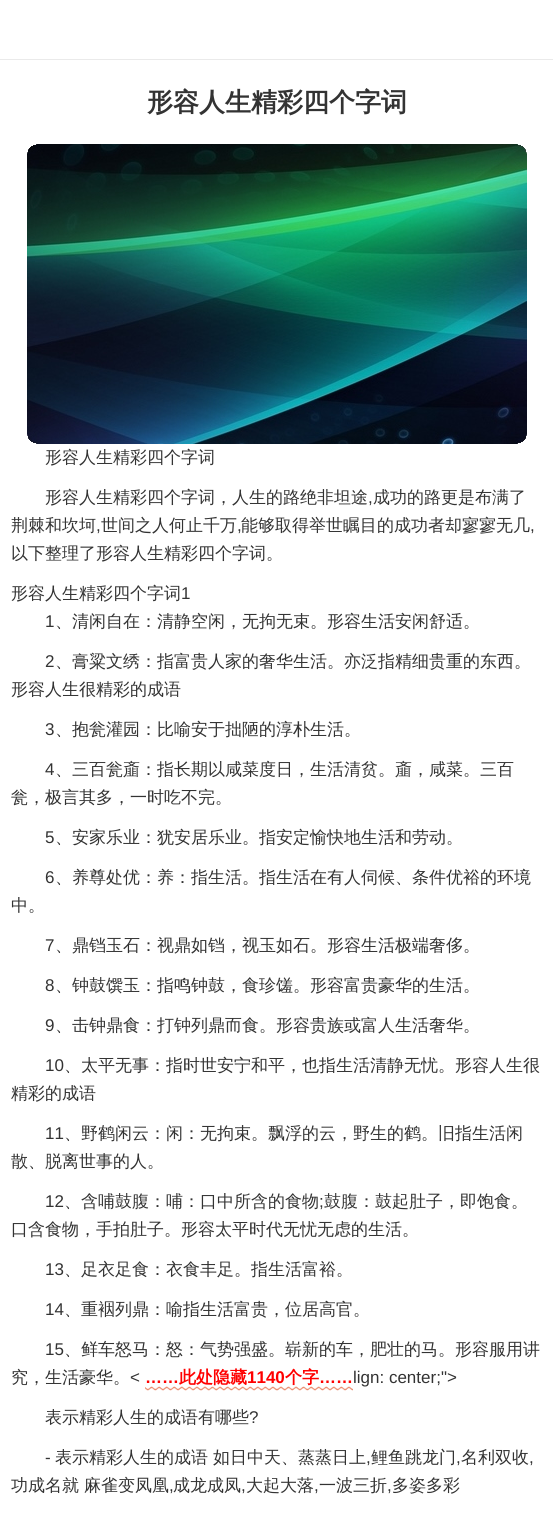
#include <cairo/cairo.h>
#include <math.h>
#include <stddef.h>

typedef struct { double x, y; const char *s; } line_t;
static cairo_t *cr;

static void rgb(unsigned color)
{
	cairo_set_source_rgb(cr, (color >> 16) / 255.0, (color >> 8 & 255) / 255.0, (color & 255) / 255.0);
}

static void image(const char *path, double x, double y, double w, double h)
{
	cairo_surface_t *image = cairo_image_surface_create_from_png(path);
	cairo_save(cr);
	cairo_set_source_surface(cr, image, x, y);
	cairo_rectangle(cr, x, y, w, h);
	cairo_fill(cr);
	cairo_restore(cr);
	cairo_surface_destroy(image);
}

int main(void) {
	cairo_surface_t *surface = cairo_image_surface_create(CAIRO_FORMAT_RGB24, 553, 1525);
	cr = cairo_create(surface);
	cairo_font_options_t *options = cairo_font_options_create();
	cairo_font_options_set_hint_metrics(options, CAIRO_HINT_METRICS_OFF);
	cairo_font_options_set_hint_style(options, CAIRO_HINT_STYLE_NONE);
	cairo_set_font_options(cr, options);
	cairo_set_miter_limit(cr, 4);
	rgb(0xffffff);
	cairo_paint(cr);
	rgb(0xeaeaea);
	cairo_rectangle(cr, 0, 59, 553, 1);
	cairo_fill(cr);
	image("img/1.png", 27, 144, 500, 300);
	image("img/2.png", 145, 1386, 208, 5);
	cairo_select_font_face(cr, "WenQuanYi Zen Hei", CAIRO_FONT_SLANT_NORMAL, CAIRO_FONT_WEIGHT_BOLD);
	cairo_set_font_size(cr, 26);
	rgb(0x333333);
	cairo_move_to(cr, 147, 111);
	cairo_show_text(cr, "形容人生精彩四个字词");
	cairo_select_font_face(cr, "WenQuanYi Zen Hei Medium", CAIRO_FONT_SLANT_NORMAL, CAIRO_FONT_WEIGHT_NORMAL);
	cairo_set_font_size(cr, 17);
	cairo_move_to(cr, 45, 463);
	cairo_show_text(cr, "形容人生精彩四个字词");
	cairo_move_to(cr, 45, 503);
	cairo_show_text(cr, "形容人生精彩四个字词，人生的路绝非坦途");
	cairo_select_font_face(cr, "Liberation Sans", CAIRO_FONT_SLANT_NORMAL, CAIRO_FONT_WEIGHT_NORMAL);
	cairo_move_to(cr, 368, 503);
	cairo_show_text(cr, ",");
	cairo_select_font_face(cr, "WenQuanYi Zen Hei Medium", CAIRO_FONT_SLANT_NORMAL, CAIRO_FONT_WEIGHT_NORMAL);
	cairo_move_to(cr, 373, 503);
	cairo_show_text(cr, "成功的路更是布满了");
	cairo_move_to(cr, 11, 531);
	cairo_show_text(cr, "荆棘和坎坷");
	cairo_select_font_face(cr, "Liberation Sans", CAIRO_FONT_SLANT_NORMAL, CAIRO_FONT_WEIGHT_NORMAL);
	cairo_move_to(cr, 96, 531);
	cairo_show_text(cr, ",");
	cairo_select_font_face(cr, "WenQuanYi Zen Hei Medium", CAIRO_FONT_SLANT_NORMAL, CAIRO_FONT_WEIGHT_NORMAL);
	cairo_move_to(cr, 101, 531);
	cairo_show_text(cr, "世间之人何止千万");
	cairo_select_font_face(cr, "Liberation Sans", CAIRO_FONT_SLANT_NORMAL, CAIRO_FONT_WEIGHT_NORMAL);
	cairo_move_to(cr, 237, 531);
	cairo_show_text(cr, ",");
	cairo_select_font_face(cr, "WenQuanYi Zen Hei Medium", CAIRO_FONT_SLANT_NORMAL, CAIRO_FONT_WEIGHT_NORMAL);
	cairo_move_to(cr, 241, 531);
	cairo_show_text(cr, "能够取得举世瞩目的成功者却寥寥无几");
	cairo_select_font_face(cr, "Liberation Sans", CAIRO_FONT_SLANT_NORMAL, CAIRO_FONT_WEIGHT_NORMAL);
	cairo_move_to(cr, 530, 531);
	cairo_show_text(cr, ",");
	cairo_select_font_face(cr, "WenQuanYi Zen Hei Medium", CAIRO_FONT_SLANT_NORMAL, CAIRO_FONT_WEIGHT_NORMAL);
	cairo_move_to(cr, 11, 559);
	cairo_show_text(cr, "以下整理了形容人生精彩四个字词。");
	cairo_move_to(cr, 11, 599);
	cairo_show_text(cr, "形容人生精彩四个字词");
	cairo_select_font_face(cr, "Liberation Sans", CAIRO_FONT_SLANT_NORMAL, CAIRO_FONT_WEIGHT_NORMAL);
	cairo_move_to(cr, 181, 599);
	cairo_show_text(cr, "1");
	cairo_move_to(cr, 45, 627);
	cairo_show_text(cr, "1");
	cairo_select_font_face(cr, "WenQuanYi Zen Hei Medium", CAIRO_FONT_SLANT_NORMAL, CAIRO_FONT_WEIGHT_NORMAL);
	cairo_move_to(cr, 55, 627);
	cairo_show_text(cr, "、清闲自在：清静空闲，无拘无束。形容生活安闲舒适。");
	cairo_select_font_face(cr, "Liberation Sans", CAIRO_FONT_SLANT_NORMAL, CAIRO_FONT_WEIGHT_NORMAL);
	cairo_move_to(cr, 45, 667);
	cairo_show_text(cr, "2");
	cairo_select_font_face(cr, "WenQuanYi Zen Hei Medium", CAIRO_FONT_SLANT_NORMAL, CAIRO_FONT_WEIGHT_NORMAL);
	cairo_move_to(cr, 55, 667);
	cairo_show_text(cr, "、膏粱文绣：指富贵人家的奢华生活。亦泛指精细贵重的东西。");
	cairo_move_to(cr, 11, 695);
	cairo_show_text(cr, "形容人生很精彩的成语");
	cairo_select_font_face(cr, "Liberation Sans", CAIRO_FONT_SLANT_NORMAL, CAIRO_FONT_WEIGHT_NORMAL);
	cairo_move_to(cr, 45, 735);
	cairo_show_text(cr, "3");
	cairo_select_font_face(cr, "WenQuanYi Zen Hei Medium", CAIRO_FONT_SLANT_NORMAL, CAIRO_FONT_WEIGHT_NORMAL);
	cairo_move_to(cr, 55, 735);
	cairo_show_text(cr, "、抱瓮灌园：比喻安于拙陋的淳朴生活。");
	cairo_select_font_face(cr, "Liberation Sans", CAIRO_FONT_SLANT_NORMAL, CAIRO_FONT_WEIGHT_NORMAL);
	cairo_move_to(cr, 45, 775);
	cairo_show_text(cr, "4");
	cairo_select_font_face(cr, "WenQuanYi Zen Hei Medium", CAIRO_FONT_SLANT_NORMAL, CAIRO_FONT_WEIGHT_NORMAL);
	cairo_move_to(cr, 55, 775);
	cairo_show_text(cr, "、三百瓮齑：指长期以咸菜度日，生活清贫。齑，咸菜。三百");
	cairo_move_to(cr, 11, 803);
	cairo_show_text(cr, "瓮，极言其多，一时吃不完。");
	cairo_select_font_face(cr, "Liberation Sans", CAIRO_FONT_SLANT_NORMAL, CAIRO_FONT_WEIGHT_NORMAL);
	cairo_move_to(cr, 45, 843);
	cairo_show_text(cr, "5");
	cairo_select_font_face(cr, "WenQuanYi Zen Hei Medium", CAIRO_FONT_SLANT_NORMAL, CAIRO_FONT_WEIGHT_NORMAL);
	cairo_move_to(cr, 55, 843);
	cairo_show_text(cr, "、安家乐业：犹安居乐业。指安定愉快地生活和劳动。");
	cairo_select_font_face(cr, "Liberation Sans", CAIRO_FONT_SLANT_NORMAL, CAIRO_FONT_WEIGHT_NORMAL);
	cairo_move_to(cr, 45, 883);
	cairo_show_text(cr, "6");
	cairo_select_font_face(cr, "WenQuanYi Zen Hei Medium", CAIRO_FONT_SLANT_NORMAL, CAIRO_FONT_WEIGHT_NORMAL);
	cairo_move_to(cr, 55, 883);
	cairo_show_text(cr, "、养尊处优：养：指生活。指生活在有人伺候、条件优裕的环境");
	cairo_move_to(cr, 11, 911);
	cairo_show_text(cr, "中。");
	cairo_select_font_face(cr, "Liberation Sans", CAIRO_FONT_SLANT_NORMAL, CAIRO_FONT_WEIGHT_NORMAL);
	cairo_move_to(cr, 45, 951);
	cairo_show_text(cr, "7");
	cairo_select_font_face(cr, "WenQuanYi Zen Hei Medium", CAIRO_FONT_SLANT_NORMAL, CAIRO_FONT_WEIGHT_NORMAL);
	cairo_move_to(cr, 55, 951);
	cairo_show_text(cr, "、鼎铛玉石：视鼎如铛，视玉如石。形容生活极端奢侈。");
	cairo_select_font_face(cr, "Liberation Sans", CAIRO_FONT_SLANT_NORMAL, CAIRO_FONT_WEIGHT_NORMAL);
	cairo_move_to(cr, 45, 991);
	cairo_show_text(cr, "8");
	cairo_select_font_face(cr, "WenQuanYi Zen Hei Medium", CAIRO_FONT_SLANT_NORMAL, CAIRO_FONT_WEIGHT_NORMAL);
	cairo_move_to(cr, 55, 991);
	cairo_show_text(cr, "、钟鼓馔玉：指鸣钟鼓，食珍馐。形容富贵豪华的生活。");
	cairo_select_font_face(cr, "Liberation Sans", CAIRO_FONT_SLANT_NORMAL, CAIRO_FONT_WEIGHT_NORMAL);
	cairo_move_to(cr, 45, 1031);
	cairo_show_text(cr, "9");
	cairo_select_font_face(cr, "WenQuanYi Zen Hei Medium", CAIRO_FONT_SLANT_NORMAL, CAIRO_FONT_WEIGHT_NORMAL);
	cairo_move_to(cr, 55, 1031);
	cairo_show_text(cr, "、击钟鼎食：打钟列鼎而食。形容贵族或富人生活奢华。");
	cairo_select_font_face(cr, "Liberation Sans", CAIRO_FONT_SLANT_NORMAL, CAIRO_FONT_WEIGHT_NORMAL);
	cairo_move_to(cr, 45, 1071);
	cairo_show_text(cr, "10");
	cairo_select_font_face(cr, "WenQuanYi Zen Hei Medium", CAIRO_FONT_SLANT_NORMAL, CAIRO_FONT_WEIGHT_NORMAL);
	cairo_move_to(cr, 64, 1071);
	cairo_show_text(cr, "、太平无事：指时世安宁和平，也指生活清静无忧。形容人生很");
	cairo_move_to(cr, 11, 1099);
	cairo_show_text(cr, "精彩的成语");
	cairo_select_font_face(cr, "Liberation Sans", CAIRO_FONT_SLANT_NORMAL, CAIRO_FONT_WEIGHT_NORMAL);
	cairo_move_to(cr, 45, 1139);
	cairo_show_text(cr, "11");
	cairo_select_font_face(cr, "WenQuanYi Zen Hei Medium", CAIRO_FONT_SLANT_NORMAL, CAIRO_FONT_WEIGHT_NORMAL);
	cairo_move_to(cr, 64, 1139);
	cairo_show_text(cr, "、野鹤闲云：闲：无拘束。飘浮的云，野生的鹤。旧指生活闲");
	cairo_move_to(cr, 11, 1167);
	cairo_show_text(cr, "散、脱离世事的人。");
	cairo_select_font_face(cr, "Liberation Sans", CAIRO_FONT_SLANT_NORMAL, CAIRO_FONT_WEIGHT_NORMAL);
	cairo_move_to(cr, 45, 1207);
	cairo_show_text(cr, "12");
	cairo_select_font_face(cr, "WenQuanYi Zen Hei Medium", CAIRO_FONT_SLANT_NORMAL, CAIRO_FONT_WEIGHT_NORMAL);
	cairo_move_to(cr, 64, 1207);
	cairo_show_text(cr, "、含哺鼓腹：哺：口中所含的食物");
	cairo_select_font_face(cr, "Liberation Sans", CAIRO_FONT_SLANT_NORMAL, CAIRO_FONT_WEIGHT_NORMAL);
	cairo_move_to(cr, 319, 1207);
	cairo_show_text(cr, ";");
	cairo_select_font_face(cr, "WenQuanYi Zen Hei Medium", CAIRO_FONT_SLANT_NORMAL, CAIRO_FONT_WEIGHT_NORMAL);
	cairo_move_to(cr, 324, 1207);
	cairo_show_text(cr, "鼓腹：鼓起肚子，即饱食。");
	cairo_move_to(cr, 11, 1235);
	cairo_show_text(cr, "口含食物，手拍肚子。形容太平时代无忧无虑的生活。");
	cairo_select_font_face(cr, "Liberation Sans", CAIRO_FONT_SLANT_NORMAL, CAIRO_FONT_WEIGHT_NORMAL);
	cairo_move_to(cr, 45, 1275);
	cairo_show_text(cr, "13");
	cairo_select_font_face(cr, "WenQuanYi Zen Hei Medium", CAIRO_FONT_SLANT_NORMAL, CAIRO_FONT_WEIGHT_NORMAL);
	cairo_move_to(cr, 64, 1275);
	cairo_show_text(cr, "、足衣足食：衣食丰足。指生活富裕。");
	cairo_select_font_face(cr, "Liberation Sans", CAIRO_FONT_SLANT_NORMAL, CAIRO_FONT_WEIGHT_NORMAL);
	cairo_move_to(cr, 45, 1315);
	cairo_show_text(cr, "14");
	cairo_select_font_face(cr, "WenQuanYi Zen Hei Medium", CAIRO_FONT_SLANT_NORMAL, CAIRO_FONT_WEIGHT_NORMAL);
	cairo_move_to(cr, 64, 1315);
	cairo_show_text(cr, "、重裀列鼎：喻指生活富贵，位居高官。");
	cairo_select_font_face(cr, "Liberation Sans", CAIRO_FONT_SLANT_NORMAL, CAIRO_FONT_WEIGHT_NORMAL);
	cairo_move_to(cr, 45, 1355);
	cairo_show_text(cr, "15");
	cairo_select_font_face(cr, "WenQuanYi Zen Hei Medium", CAIRO_FONT_SLANT_NORMAL, CAIRO_FONT_WEIGHT_NORMAL);
	cairo_move_to(cr, 64, 1355);
	cairo_show_text(cr, "、鲜车怒马：怒：气势强盛。崭新的车，肥壮的马。形容服用讲");
	cairo_move_to(cr, 11, 1383);
	cairo_show_text(cr, "究，生活豪华。");
	cairo_select_font_face(cr, "Liberation Sans", CAIRO_FONT_SLANT_NORMAL, CAIRO_FONT_WEIGHT_NORMAL);
	cairo_move_to(cr, 130, 1383);
	cairo_show_text(cr, "<");
	cairo_select_font_face(cr, "Liberation Sans", CAIRO_FONT_SLANT_NORMAL, CAIRO_FONT_WEIGHT_BOLD);
	rgb(0xff0000);
	cairo_move_to(cr, 145, 1383);
	cairo_show_text(cr, "……");
	cairo_select_font_face(cr, "WenQuanYi Zen Hei", CAIRO_FONT_SLANT_NORMAL, CAIRO_FONT_WEIGHT_BOLD);
	cairo_move_to(cr, 179, 1383);
	cairo_show_text(cr, "此处隐藏");
	cairo_select_font_face(cr, "Liberation Sans", CAIRO_FONT_SLANT_NORMAL, CAIRO_FONT_WEIGHT_BOLD);
	cairo_move_to(cr, 247, 1383);
	cairo_show_text(cr, "1140");
	cairo_select_font_face(cr, "WenQuanYi Zen Hei", CAIRO_FONT_SLANT_NORMAL, CAIRO_FONT_WEIGHT_BOLD);
	cairo_move_to(cr, 285, 1383);
	cairo_show_text(cr, "个字");
	cairo_select_font_face(cr, "Liberation Sans", CAIRO_FONT_SLANT_NORMAL, CAIRO_FONT_WEIGHT_BOLD);
	cairo_move_to(cr, 319, 1383);
	cairo_show_text(cr, "……");
	cairo_select_font_face(cr, "Liberation Sans", CAIRO_FONT_SLANT_NORMAL, CAIRO_FONT_WEIGHT_NORMAL);
	rgb(0x333333);
	cairo_move_to(cr, 353, 1383);
	cairo_show_text(cr, "lign: center;\">");
	cairo_select_font_face(cr, "WenQuanYi Zen Hei Medium", CAIRO_FONT_SLANT_NORMAL, CAIRO_FONT_WEIGHT_NORMAL);
	cairo_move_to(cr, 45, 1423);
	cairo_show_text(cr, "表示精彩人生的成语有哪些");
	cairo_select_font_face(cr, "Liberation Sans", CAIRO_FONT_SLANT_NORMAL, CAIRO_FONT_WEIGHT_NORMAL);
	cairo_move_to(cr, 249, 1423);
	cairo_show_text(cr, "?");
	cairo_move_to(cr, 45, 1463);
	cairo_show_text(cr, "-");
	cairo_select_font_face(cr, "WenQuanYi Zen Hei Medium", CAIRO_FONT_SLANT_NORMAL, CAIRO_FONT_WEIGHT_NORMAL);
	{
		static const line_t items[] = {
			{55, 1463, "表示精彩人生的成语 如日中天、蒸蒸日上"},
			{371, 1463, "鲤鱼跳龙门"},
			{461, 1463, "名利双收"},
		};
		for (size_t i = 0; i < sizeof items / sizeof *items; i++) {
			cairo_move_to(cr, items[i].x, items[i].y);
			cairo_show_text(cr, items[i].s);
		}
	}
	cairo_select_font_face(cr, "Liberation Sans", CAIRO_FONT_SLANT_NORMAL, CAIRO_FONT_WEIGHT_NORMAL);
	{
		static const line_t items[] = {
			{366, 1463, ","},
			{456, 1463, ","},
			{529, 1463, ","},
		};
		for (size_t i = 0; i < sizeof items / sizeof *items; i++) {
			cairo_move_to(cr, items[i].x, items[i].y);
			cairo_show_text(cr, items[i].s);
		}
	}
	cairo_select_font_face(cr, "WenQuanYi Zen Hei Medium", CAIRO_FONT_SLANT_NORMAL, CAIRO_FONT_WEIGHT_NORMAL);
	cairo_move_to(cr, 11, 1491);
	cairo_show_text(cr, "功成名就 麻雀变凤凰");
	cairo_select_font_face(cr, "Liberation Sans", CAIRO_FONT_SLANT_NORMAL, CAIRO_FONT_WEIGHT_NORMAL);
	cairo_move_to(cr, 169, 1491);
	cairo_show_text(cr, ",");
	cairo_select_font_face(cr, "WenQuanYi Zen Hei Medium", CAIRO_FONT_SLANT_NORMAL, CAIRO_FONT_WEIGHT_NORMAL);
	cairo_move_to(cr, 173, 1491);
	cairo_show_text(cr, "成龙成凤");
	cairo_select_font_face(cr, "Liberation Sans", CAIRO_FONT_SLANT_NORMAL, CAIRO_FONT_WEIGHT_NORMAL);
	cairo_move_to(cr, 241, 1491);
	cairo_show_text(cr, ",");
	cairo_select_font_face(cr, "WenQuanYi Zen Hei Medium", CAIRO_FONT_SLANT_NORMAL, CAIRO_FONT_WEIGHT_NORMAL);
	cairo_move_to(cr, 246, 1491);
	cairo_show_text(cr, "大起大落");
	cairo_select_font_face(cr, "Liberation Sans", CAIRO_FONT_SLANT_NORMAL, CAIRO_FONT_WEIGHT_NORMAL);
	cairo_move_to(cr, 314, 1491);
	cairo_show_text(cr, ",");
	cairo_select_font_face(cr, "WenQuanYi Zen Hei Medium", CAIRO_FONT_SLANT_NORMAL, CAIRO_FONT_WEIGHT_NORMAL);
	cairo_move_to(cr, 319, 1491);
	cairo_show_text(cr, "一波三折");
	cairo_select_font_face(cr, "Liberation Sans", CAIRO_FONT_SLANT_NORMAL, CAIRO_FONT_WEIGHT_NORMAL);
	cairo_move_to(cr, 387, 1491);
	cairo_show_text(cr, ",");
	cairo_select_font_face(cr, "WenQuanYi Zen Hei Medium", CAIRO_FONT_SLANT_NORMAL, CAIRO_FONT_WEIGHT_NORMAL);
	cairo_move_to(cr, 392, 1491);
	cairo_show_text(cr, "多姿多彩");
	cairo_surface_write_to_png(surface, "page.png");
	cairo_font_options_destroy(options);
	cairo_destroy(cr);
	cairo_surface_destroy(surface);
	return 0;
}
